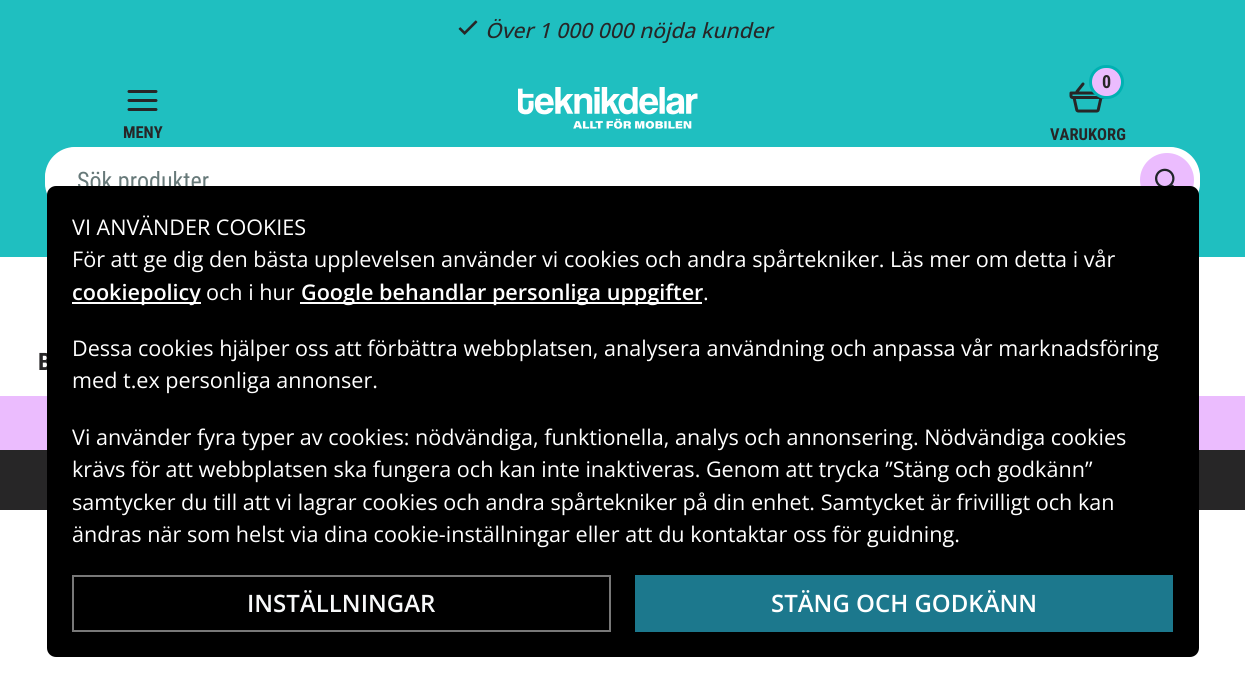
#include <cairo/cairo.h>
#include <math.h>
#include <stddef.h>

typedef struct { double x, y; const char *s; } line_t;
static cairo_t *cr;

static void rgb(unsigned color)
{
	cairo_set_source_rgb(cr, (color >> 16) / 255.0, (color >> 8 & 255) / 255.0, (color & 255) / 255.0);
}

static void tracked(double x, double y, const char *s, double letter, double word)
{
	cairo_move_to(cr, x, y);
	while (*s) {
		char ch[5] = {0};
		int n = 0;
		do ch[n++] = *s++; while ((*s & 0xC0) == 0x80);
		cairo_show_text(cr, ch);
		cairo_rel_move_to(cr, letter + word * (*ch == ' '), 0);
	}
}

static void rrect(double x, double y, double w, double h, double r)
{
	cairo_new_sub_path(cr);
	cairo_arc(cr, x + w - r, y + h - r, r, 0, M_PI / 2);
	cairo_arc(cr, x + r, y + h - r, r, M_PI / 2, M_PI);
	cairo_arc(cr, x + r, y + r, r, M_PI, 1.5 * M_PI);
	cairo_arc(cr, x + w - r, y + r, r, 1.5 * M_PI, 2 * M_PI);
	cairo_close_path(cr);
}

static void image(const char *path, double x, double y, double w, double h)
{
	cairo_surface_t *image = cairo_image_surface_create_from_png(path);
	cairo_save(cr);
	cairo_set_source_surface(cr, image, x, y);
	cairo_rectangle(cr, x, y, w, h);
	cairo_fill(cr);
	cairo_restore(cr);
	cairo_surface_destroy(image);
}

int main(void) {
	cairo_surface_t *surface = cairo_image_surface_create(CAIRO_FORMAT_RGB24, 1245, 681);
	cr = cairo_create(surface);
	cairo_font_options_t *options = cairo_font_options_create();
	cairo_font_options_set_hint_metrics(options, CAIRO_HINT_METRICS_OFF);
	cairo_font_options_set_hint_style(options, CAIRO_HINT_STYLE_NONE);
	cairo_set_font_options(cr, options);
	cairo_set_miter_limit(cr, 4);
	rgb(0xffffff);
	cairo_paint(cr);
	rgb(0x1fbfc0);
	cairo_rectangle(cr, 0, 0, 1245, 257);
	cairo_fill(cr);
	image("img/1.png", 458, 20, 20, 15);
	image("img/2.png", 518, 87, 180, 42);
	image("img/3.png", 1069, 82, 36, 31);
	rgb(0xebbcfe);
	rrect(1090.5, 66.5, 32, 31, 15.5);
	cairo_fill_preserve(cr);
	rgb(0x00b1b2);
	cairo_set_line_width(cr, 3);
	cairo_stroke(cr);
	image("img/4.png", 127, 90, 31, 21);
	rgb(0xffffff);
	rrect(45, 147, 1155, 66, 30);
	cairo_fill(cr);
	rrect(45, 147, 1155, 66, 33);
	cairo_fill(cr);
	rgb(0xebbcfe);
	cairo_arc(cr, 1167, 180, 27, 0, 2 * M_PI);
	cairo_fill(cr);
	image("img/5.png", 1155, 168, 20, 18);
	cairo_rectangle(cr, 0, 396, 1245, 54);
	cairo_fill(cr);
	rgb(0x272627);
	cairo_rectangle(cr, 0, 450, 1245, 60);
	cairo_fill(cr);
	cairo_select_font_face(cr, "Open Sans Medium", CAIRO_FONT_SLANT_ITALIC, CAIRO_FONT_WEIGHT_NORMAL);
	cairo_set_font_size(cr, 21);
	cairo_move_to(cr, 485, 38);
	cairo_show_text(cr, "Över 1 000 000 nöjda kunder");
	cairo_select_font_face(cr, "Roboto Condensed", CAIRO_FONT_SLANT_NORMAL, CAIRO_FONT_WEIGHT_BOLD);
	cairo_set_font_size(cr, 18);
	cairo_move_to(cr, 1102, 88);
	cairo_show_text(cr, "0");
	cairo_set_font_size(cr, 16.5);
	cairo_move_to(cr, 1050, 140);
	cairo_show_text(cr, "VARUKORG");
	cairo_move_to(cr, 123, 138);
	cairo_show_text(cr, "MENY");
	cairo_set_font_size(cr, 24);
	tracked(38, 370, "B", -1, 0);
	cairo_select_font_face(cr, "Roboto Condensed", CAIRO_FONT_SLANT_NORMAL, CAIRO_FONT_WEIGHT_NORMAL);
	rgb(0x677979);
	cairo_move_to(cr, 77, 189);
	cairo_show_text(cr, "Sök produkter");
	rgb(0x000000);
	rrect(48, 187, 1150, 469, 8);
	cairo_fill_preserve(cr);
	cairo_set_line_width(cr, 2);
	cairo_stroke(cr);
	cairo_select_font_face(cr, "Open Sans", CAIRO_FONT_SLANT_NORMAL, CAIRO_FONT_WEIGHT_NORMAL);
	cairo_set_font_size(cr, 21.6);
	rgb(0xffffff);
	cairo_move_to(cr, 72, 235);
	cairo_show_text(cr, "VI ANVÄNDER COOKIES");
	cairo_move_to(cr, 72, 267);
	cairo_show_text(cr, "För att ge dig den bästa upplevelsen använder vi cookies och andra spårtekniker. Läs mer om detta i vår");
	cairo_rectangle(cr, 72, 302, 129, 2);
	cairo_fill(cr);
	cairo_select_font_face(cr, "Open Sans SemiBold", CAIRO_FONT_SLANT_NORMAL, CAIRO_FONT_WEIGHT_NORMAL);
	cairo_move_to(cr, 72, 300);
	cairo_show_text(cr, "cookiepolicy");
	cairo_select_font_face(cr, "Open Sans", CAIRO_FONT_SLANT_NORMAL, CAIRO_FONT_WEIGHT_NORMAL);
	cairo_move_to(cr, 206, 300);
	cairo_show_text(cr, "och i hur");
	cairo_rectangle(cr, 300, 302, 402, 2);
	cairo_fill(cr);
	cairo_select_font_face(cr, "Open Sans SemiBold", CAIRO_FONT_SLANT_NORMAL, CAIRO_FONT_WEIGHT_NORMAL);
	cairo_move_to(cr, 301, 300);
	cairo_show_text(cr, "Google behandlar personliga uppgifter");
	cairo_select_font_face(cr, "Open Sans", CAIRO_FONT_SLANT_NORMAL, CAIRO_FONT_WEIGHT_NORMAL);
	{
		static const line_t items[] = {
			{703, 300, "."},
			{72, 356, "Dessa cookies hjälper oss att förbättra webbplatsen, analysera användning och anpassa vår marknadsföring"},
			{72, 388, "med t.ex personliga annonser."},
			{72, 445, "Vi använder fyra typer av cookies: nödvändiga, funktionella, analys och annonsering. Nödvändiga cookies"},
			{72, 477, "krävs för att webbplatsen ska fungera och kan inte inaktiveras. Genom att trycka ”Stäng och godkänn”"},
			{72, 510, "samtycker du till att vi lagrar cookies och andra spårtekniker på din enhet. Samtycket är frivilligt och kan"},
			{72, 542, "ändras när som helst via dina cookie-inställningar eller att du kontaktar oss för guidning."},
		};
		for (size_t i = 0; i < sizeof items / sizeof *items; i++) {
			cairo_move_to(cr, items[i].x, items[i].y);
			cairo_show_text(cr, items[i].s);
		}
	}
	cairo_rectangle(cr, 73, 576, 537, 55);
	rgb(0x787878);
	cairo_stroke(cr);
	cairo_select_font_face(cr, "Open Sans SemiBold", CAIRO_FONT_SLANT_NORMAL, CAIRO_FONT_WEIGHT_NORMAL);
	cairo_set_font_size(cr, 24);
	rgb(0xf8f9fa);
	cairo_move_to(cr, 247, 612);
	cairo_show_text(cr, "INSTÄLLNINGAR");
	rgb(0x1c788d);
	cairo_rectangle(cr, 635, 575, 538, 57);
	cairo_fill(cr);
	rgb(0xffffff);
	cairo_move_to(cr, 771, 612);
	cairo_show_text(cr, "STÄNG OCH GODKÄNN");
	cairo_surface_write_to_png(surface, "page.png");
	cairo_font_options_destroy(options);
	cairo_destroy(cr);
	cairo_surface_destroy(surface);
	return 0;
}
